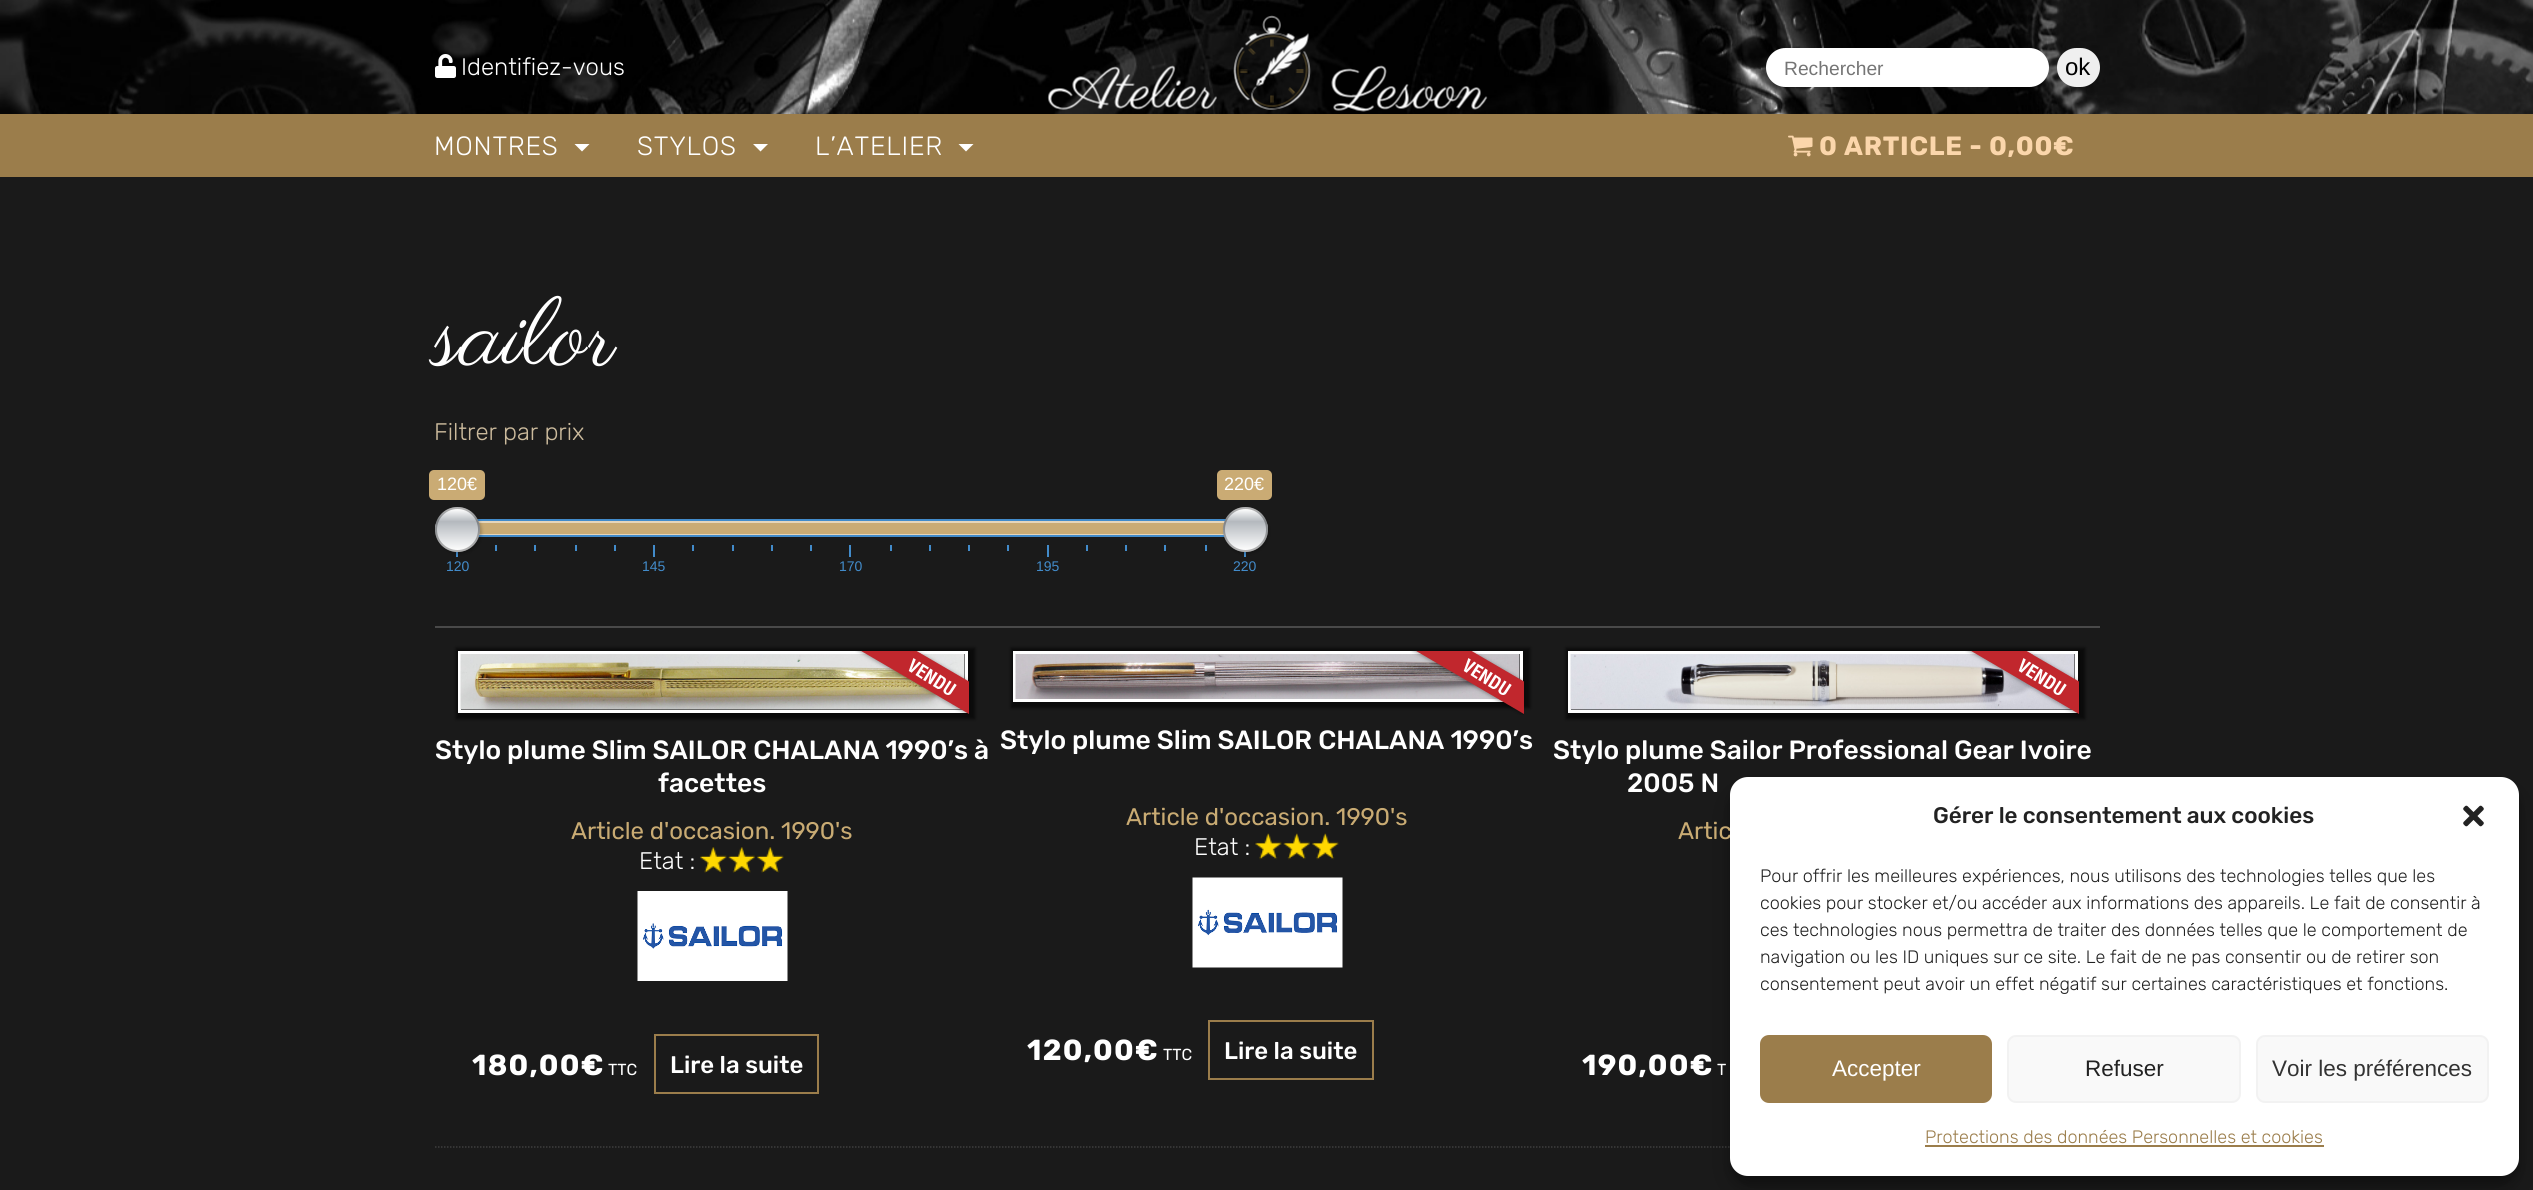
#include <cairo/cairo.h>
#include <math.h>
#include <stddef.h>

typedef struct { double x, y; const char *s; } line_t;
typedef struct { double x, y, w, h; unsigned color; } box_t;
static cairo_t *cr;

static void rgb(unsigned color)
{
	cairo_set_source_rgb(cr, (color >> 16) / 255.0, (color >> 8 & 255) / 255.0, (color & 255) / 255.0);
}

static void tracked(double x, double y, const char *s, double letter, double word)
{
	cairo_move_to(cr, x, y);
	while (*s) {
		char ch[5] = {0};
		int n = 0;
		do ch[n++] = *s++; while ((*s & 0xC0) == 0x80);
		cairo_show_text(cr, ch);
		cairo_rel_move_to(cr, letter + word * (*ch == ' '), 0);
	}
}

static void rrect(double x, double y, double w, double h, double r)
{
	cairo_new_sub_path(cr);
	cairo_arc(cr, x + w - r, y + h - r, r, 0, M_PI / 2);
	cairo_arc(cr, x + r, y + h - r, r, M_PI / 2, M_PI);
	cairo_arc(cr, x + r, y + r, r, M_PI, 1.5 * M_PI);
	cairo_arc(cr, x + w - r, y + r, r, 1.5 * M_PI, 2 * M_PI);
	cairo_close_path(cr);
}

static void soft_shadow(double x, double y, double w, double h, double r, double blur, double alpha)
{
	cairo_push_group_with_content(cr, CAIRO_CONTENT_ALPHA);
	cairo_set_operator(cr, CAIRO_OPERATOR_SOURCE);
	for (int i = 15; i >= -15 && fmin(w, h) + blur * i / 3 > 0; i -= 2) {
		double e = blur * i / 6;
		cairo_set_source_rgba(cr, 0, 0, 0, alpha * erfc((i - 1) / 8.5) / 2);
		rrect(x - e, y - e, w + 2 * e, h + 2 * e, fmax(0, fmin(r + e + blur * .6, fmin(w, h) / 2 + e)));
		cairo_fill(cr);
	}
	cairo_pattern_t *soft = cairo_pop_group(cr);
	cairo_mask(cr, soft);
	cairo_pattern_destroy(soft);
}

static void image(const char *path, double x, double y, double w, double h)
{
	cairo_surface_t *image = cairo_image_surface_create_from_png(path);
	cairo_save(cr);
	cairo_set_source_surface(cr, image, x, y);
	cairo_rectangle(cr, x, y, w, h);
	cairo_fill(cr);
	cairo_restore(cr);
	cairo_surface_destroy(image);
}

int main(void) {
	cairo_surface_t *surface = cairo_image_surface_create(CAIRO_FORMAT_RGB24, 2533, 1190);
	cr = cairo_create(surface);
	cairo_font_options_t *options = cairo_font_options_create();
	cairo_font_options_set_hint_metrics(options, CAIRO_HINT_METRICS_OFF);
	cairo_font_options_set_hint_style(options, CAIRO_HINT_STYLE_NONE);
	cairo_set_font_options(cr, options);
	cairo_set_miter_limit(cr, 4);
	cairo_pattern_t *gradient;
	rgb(0x1a1a1a);
	cairo_paint(cr);
	image("img/1.png", 0, 0, 2533, 114);
	image("img/2.png", 435, 54, 21, 24);
	image("img/3.png", 1047, 15, 441, 97);
	rgb(0xffffff);
	rrect(1766, 48, 283, 39, 19.5);
	cairo_fill(cr);
	rgb(0xefefef);
	rrect(2057, 48, 43, 39, 19.5);
	cairo_fill(cr);
	rgb(0x9b7d4b);
	cairo_rectangle(cr, 0, 114, 2533, 63);
	cairo_fill(cr);
	rgb(0xffffff);
	cairo_new_path(cr);
	cairo_move_to(cr, 574.5, 144);
	cairo_line_to(cr, 589.5, 144);
	cairo_line_to(cr, 582, 151.5);
	cairo_close_path(cr);
	cairo_fill(cr);
	cairo_new_path(cr);
	cairo_move_to(cr, 753, 144);
	cairo_line_to(cr, 768, 144);
	cairo_line_to(cr, 760.5, 151.5);
	cairo_close_path(cr);
	cairo_fill(cr);
	cairo_new_path(cr);
	cairo_move_to(cr, 958.5, 144);
	cairo_line_to(cr, 973.5, 144);
	cairo_line_to(cr, 966, 151.5);
	cairo_close_path(cr);
	cairo_fill(cr);
	image("img/4.png", 1788, 135, 25, 22);
	rgb(0xcaab74);
	rrect(429, 470, 56, 30, 5);
	cairo_fill(cr);
	rrect(1217, 470, 55, 30, 5);
	cairo_fill(cr);
	rrect(436, 520, 831, 16, 8);
	rgb(0xcccccc);
	cairo_stroke(cr);
	rgb(0xcaab74);
	cairo_rectangle(cr, 479, 523, 745, 11);
	cairo_fill(cr);
	cairo_rectangle(cr, 460, 522, 783, 13);
	rgb(0xe5d5ba);
	cairo_stroke(cr);
	cairo_rectangle(cr, 459, 520, 785, 16);
	rgb(0x428bca);
	cairo_stroke(cr);
	cairo_rectangle(cr, 456, 545, 2, 12);
	cairo_fill(cr);
	rgb(0x000000);
	soft_shadow(437, 509, 45, 45, 22.5, 1.5, 0.2);
	cairo_save(cr);
	rrect(435, 507, 45, 45, 22.5);
	cairo_clip(cr);
	gradient = cairo_pattern_create_linear(458, 467, 458, 509);
	cairo_pattern_add_color_stop_rgba(gradient, 0, 1, 1, 1, 1);
	cairo_pattern_add_color_stop_rgba(gradient, 0.3, 0.706, 0.725, 0.745, 1);
	cairo_pattern_add_color_stop_rgba(gradient, 1, 1, 1, 1, 1);
	cairo_set_source(cr, gradient);
	cairo_pattern_destroy(gradient);
	cairo_rectangle(cr, 448, 507, 19, 2);
	cairo_fill(cr);
	gradient = cairo_pattern_create_linear(458, 509, 458, 551);
	cairo_pattern_add_color_stop_rgba(gradient, 0, 1, 1, 1, 1);
	cairo_pattern_add_color_stop_rgba(gradient, 0.3, 0.706, 0.725, 0.745, 1);
	cairo_pattern_add_color_stop_rgba(gradient, 1, 1, 1, 1, 1);
	cairo_set_source(cr, gradient);
	cairo_pattern_destroy(gradient);
	cairo_rectangle(cr, 435, 509, 45, 42);
	cairo_fill(cr);
	gradient = cairo_pattern_create_linear(458, 551, 458, 593);
	cairo_pattern_add_color_stop_rgba(gradient, 0, 1, 1, 1, 1);
	cairo_pattern_add_color_stop_rgba(gradient, 0.3, 0.706, 0.725, 0.745, 1);
	cairo_pattern_add_color_stop_rgba(gradient, 1, 1, 1, 1, 1);
	cairo_set_source(cr, gradient);
	cairo_pattern_destroy(gradient);
	cairo_rectangle(cr, 451, 551, 13, 1);
	cairo_fill(cr);
	cairo_restore(cr);
	cairo_arc(cr, 457.5, 529.5, 21.5, 0, 2 * M_PI);
	cairo_set_source_rgba(cr, 0, 0, 0, 0.3);
	cairo_stroke(cr);
	rgb(0x428bca);
	cairo_rectangle(cr, 1244, 545, 2, 12);
	cairo_fill(cr);
	rgb(0x000000);
	soft_shadow(1224, 509, 45, 45, 22.5, 1.5, 0.2);
	cairo_save(cr);
	rrect(1223, 507, 45, 45, 22.5);
	cairo_clip(cr);
	gradient = cairo_pattern_create_linear(1245, 467, 1245, 509);
	cairo_pattern_add_color_stop_rgba(gradient, 0, 1, 1, 1, 1);
	cairo_pattern_add_color_stop_rgba(gradient, 0.3, 0.706, 0.725, 0.745, 1);
	cairo_pattern_add_color_stop_rgba(gradient, 1, 1, 1, 1, 1);
	cairo_set_source(cr, gradient);
	cairo_pattern_destroy(gradient);
	cairo_rectangle(cr, 1236, 507, 19, 2);
	cairo_fill(cr);
	gradient = cairo_pattern_create_linear(1245, 509, 1245, 551);
	cairo_pattern_add_color_stop_rgba(gradient, 0, 1, 1, 1, 1);
	cairo_pattern_add_color_stop_rgba(gradient, 0.3, 0.706, 0.725, 0.745, 1);
	cairo_pattern_add_color_stop_rgba(gradient, 1, 1, 1, 1, 1);
	cairo_set_source(cr, gradient);
	cairo_pattern_destroy(gradient);
	cairo_rectangle(cr, 1223, 509, 45, 42);
	cairo_fill(cr);
	gradient = cairo_pattern_create_linear(1245, 551, 1245, 593);
	cairo_pattern_add_color_stop_rgba(gradient, 0, 1, 1, 1, 1);
	cairo_pattern_add_color_stop_rgba(gradient, 0.3, 0.706, 0.725, 0.745, 1);
	cairo_pattern_add_color_stop_rgba(gradient, 1, 1, 1, 1, 1);
	cairo_set_source(cr, gradient);
	cairo_pattern_destroy(gradient);
	cairo_rectangle(cr, 1239, 551, 13, 1);
	cairo_fill(cr);
	cairo_restore(cr);
	cairo_arc(cr, 1245.5, 529.5, 21.5, 0, 2 * M_PI);
	cairo_set_source_rgba(cr, 0, 0, 0, 0.3);
	cairo_stroke(cr);
	{
		static const box_t items[] = {
			{495, 545, 2, 6, 0x428bca},
			{534, 545, 2, 6, 0x428bca},
			{575, 545, 2, 6, 0x428bca},
			{614, 545, 2, 6, 0x428bca},
			{653, 545, 2, 12, 0x428bca},
			{692, 545, 2, 6, 0x428bca},
			{732, 545, 2, 6, 0x428bca},
			{771, 545, 2, 6, 0x428bca},
			{810, 545, 2, 6, 0x428bca},
			{849, 545, 2, 12, 0x428bca},
			{890, 545, 2, 6, 0x428bca},
			{929, 545, 2, 6, 0x428bca},
			{968, 545, 2, 6, 0x428bca},
			{1007, 545, 2, 6, 0x428bca},
			{1047, 545, 2, 12, 0x428bca},
			{1086, 545, 2, 6, 0x428bca},
			{1125, 545, 2, 6, 0x428bca},
			{1164, 545, 2, 6, 0x428bca},
			{1205, 545, 2, 6, 0x428bca},
			{435, 626, 1665, 2, 0x494949},
		};
		for (size_t i = 0; i < sizeof items / sizeof *items; i++) {
			rgb(items[i].color);
			cairo_rectangle(cr, items[i].x, items[i].y, items[i].w, items[i].h);
			cairo_fill(cr);
		}
	}
	rgb(0x000000);
	soft_shadow(456, 648, 519, 71, 0, 1.5, 0.6);
	cairo_rectangle(cr, 459.5, 652.5, 507, 59);
	rgb(0xffffff);
	cairo_set_line_width(cr, 3);
	cairo_stroke(cr);
	image("img/5.png", 460, 654, 505, 56);
	image("img/6.png", 855, 651, 114, 63);
	image("img/7.png", 700, 846, 84, 27);
	image("img/8.png", 637, 891, 151, 90);
	cairo_rectangle(cr, 655, 1035, 163, 58);
	rgb(0x9b7d4b);
	cairo_set_line_width(cr, 2);
	cairo_stroke(cr);
	cairo_new_path(cr);
	cairo_move_to(cr, 435, 1147);
	cairo_line_to(cr, 990, 1147);
	rgb(0x3e3e3e);
	cairo_set_line_width(cr, 1.5);
	cairo_set_dash(cr, (double[]){1.5, 1.5}, 2, 0);
	cairo_stroke(cr);
	rgb(0x000000);
	soft_shadow(1011, 648, 519, 60, 0, 1.5, 0.6);
	cairo_rectangle(cr, 1014.5, 652.5, 507, 48);
	rgb(0xffffff);
	cairo_set_line_width(cr, 3);
	cairo_set_dash(cr, NULL, 0, 0);
	cairo_stroke(cr);
	image("img/9.png", 1015, 654, 505, 45);
	image("img/10.png", 1410, 651, 114, 64);
	image("img/11.png", 1254, 833, 85, 27);
	image("img/12.png", 1192, 877, 151, 91);
	cairo_rectangle(cr, 1209, 1021, 164, 58);
	rgb(0x9b7d4b);
	cairo_set_line_width(cr, 2);
	cairo_stroke(cr);
	cairo_new_path(cr);
	cairo_move_to(cr, 990, 1147);
	cairo_line_to(cr, 1545, 1147);
	rgb(0x3e3e3e);
	cairo_set_line_width(cr, 1.5);
	cairo_set_dash(cr, (double[]){1.5, 1.5}, 2, 0);
	cairo_stroke(cr);
	rgb(0x000000);
	soft_shadow(1566, 648, 519, 71, 0, 1.5, 0.6);
	cairo_rectangle(cr, 1569.5, 652.5, 507, 59);
	rgb(0xffffff);
	cairo_set_line_width(cr, 3);
	cairo_set_dash(cr, NULL, 0, 0);
	cairo_stroke(cr);
	image("img/13.png", 1570, 654, 505, 56);
	image("img/14.png", 1965, 651, 114, 63);
	cairo_new_path(cr);
	cairo_move_to(cr, 1545, 1147);
	cairo_line_to(cr, 2100, 1147);
	rgb(0x3e3e3e);
	cairo_set_line_width(cr, 1.5);
	cairo_set_dash(cr, (double[]){1.5, 1.5}, 2, 0);
	cairo_stroke(cr);
	rgb(0x000000);
	soft_shadow(1730, 786, 789, 399, 18, 4.5, 0.23);
	soft_shadow(1730, 792, 789, 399, 18, 15, 0.19);
	cairo_select_font_face(cr, "Rubik Light", CAIRO_FONT_SLANT_NORMAL, CAIRO_FONT_WEIGHT_NORMAL);
	cairo_set_font_size(cr, 24);
	rgb(0xffffff);
	cairo_move_to(cr, 461, 75);
	cairo_show_text(cr, "Identifiez-vous");
	cairo_select_font_face(cr, "Liberation Sans", CAIRO_FONT_SLANT_NORMAL, CAIRO_FONT_WEIGHT_NORMAL);
	cairo_set_font_size(cr, 19.25);
	rgb(0x757575);
	cairo_move_to(cr, 1784, 75);
	cairo_show_text(cr, "Rechercher");
	cairo_set_font_size(cr, 24);
	rgb(0x000000);
	cairo_move_to(cr, 2065, 75);
	cairo_show_text(cr, "ok");
	cairo_select_font_face(cr, "Rubik Light", CAIRO_FONT_SLANT_NORMAL, CAIRO_FONT_WEIGHT_NORMAL);
	cairo_set_font_size(cr, 26.4);
	rgb(0xffffff);
	{
		static const line_t items[] = {
			{434, 155, "MONTRES"},
			{637, 155, "STYLOS"},
			{815, 155, "L’ATELIER"},
		};
		for (size_t i = 0; i < sizeof items / sizeof *items; i++) {
			tracked(items[i].x, items[i].y, items[i].s, 0.75, 0);
		}
	}
	cairo_select_font_face(cr, "Rubik", CAIRO_FONT_SLANT_NORMAL, CAIRO_FONT_WEIGHT_BOLD);
	rgb(0xfbd6ab);
	tracked(1819, 155, "0 ARTICLE - 0,00€", 0.75, 0);
	cairo_select_font_face(cr, "Parisienne", CAIRO_FONT_SLANT_NORMAL, CAIRO_FONT_WEIGHT_NORMAL);
	cairo_set_font_size(cr, 96);
	rgb(0xffffff);
	tracked(434, 364, "sailor", 1.25, 0);
	cairo_select_font_face(cr, "Rubik Light", CAIRO_FONT_SLANT_NORMAL, CAIRO_FONT_WEIGHT_NORMAL);
	cairo_set_font_size(cr, 24);
	rgb(0xcbba9c);
	cairo_move_to(cr, 434, 440);
	cairo_show_text(cr, "Filtrer par prix");
	cairo_select_font_face(cr, "Liberation Sans", CAIRO_FONT_SLANT_NORMAL, CAIRO_FONT_WEIGHT_NORMAL);
	cairo_set_font_size(cr, 18);
	rgb(0xffffff);
	cairo_move_to(cr, 437, 490);
	cairo_show_text(cr, "120€");
	cairo_move_to(cr, 1224, 490);
	cairo_show_text(cr, "220€");
	cairo_set_font_size(cr, 14);
	rgb(0x428bca);
	{
		static const line_t items[] = {
			{446, 571, "120"},
			{642, 571, "145"},
			{839, 571, "170"},
			{1036, 571, "195"},
			{1233, 571, "220"},
		};
		for (size_t i = 0; i < sizeof items / sizeof *items; i++) {
			cairo_move_to(cr, items[i].x, items[i].y);
			cairo_show_text(cr, items[i].s);
		}
	}
	cairo_select_font_face(cr, "Rubik Medium", CAIRO_FONT_SLANT_NORMAL, CAIRO_FONT_WEIGHT_NORMAL);
	cairo_set_font_size(cr, 26.4);
	rgb(0xffffff);
	cairo_move_to(cr, 435, 759);
	cairo_show_text(cr, "Stylo plume Slim SAILOR CHALANA 1990’s à");
	cairo_move_to(cr, 658, 792);
	cairo_show_text(cr, "facettes");
	cairo_select_font_face(cr, "Rubik", CAIRO_FONT_SLANT_NORMAL, CAIRO_FONT_WEIGHT_NORMAL);
	cairo_set_font_size(cr, 24);
	rgb(0xc9ab73);
	cairo_move_to(cr, 571, 839);
	cairo_show_text(cr, "Article d'occasion. 1990's");
	cairo_select_font_face(cr, "Rubik Light", CAIRO_FONT_SLANT_NORMAL, CAIRO_FONT_WEIGHT_NORMAL);
	rgb(0xffffff);
	cairo_move_to(cr, 639, 869);
	cairo_show_text(cr, "Etat :");
	cairo_select_font_face(cr, "Rubik", CAIRO_FONT_SLANT_NORMAL, CAIRO_FONT_WEIGHT_BOLD);
	cairo_set_font_size(cr, 29);
	tracked(472, 1075, "180,00€", 1.25, 0);
	cairo_select_font_face(cr, "Rubik", CAIRO_FONT_SLANT_NORMAL, CAIRO_FONT_WEIGHT_NORMAL);
	cairo_set_font_size(cr, 16);
	cairo_move_to(cr, 608, 1075);
	cairo_show_text(cr, "TTC");
	cairo_select_font_face(cr, "Rubik Medium", CAIRO_FONT_SLANT_NORMAL, CAIRO_FONT_WEIGHT_NORMAL);
	cairo_set_font_size(cr, 24);
	cairo_move_to(cr, 670, 1073);
	cairo_show_text(cr, "Lire la suite");
	cairo_set_font_size(cr, 26.4);
	cairo_move_to(cr, 1000, 749);
	cairo_show_text(cr, "Stylo plume Slim SAILOR CHALANA 1990’s");
	cairo_select_font_face(cr, "Rubik", CAIRO_FONT_SLANT_NORMAL, CAIRO_FONT_WEIGHT_NORMAL);
	cairo_set_font_size(cr, 24);
	rgb(0xc9ab73);
	cairo_move_to(cr, 1126, 825);
	cairo_show_text(cr, "Article d'occasion. 1990's");
	cairo_select_font_face(cr, "Rubik Light", CAIRO_FONT_SLANT_NORMAL, CAIRO_FONT_WEIGHT_NORMAL);
	rgb(0xffffff);
	cairo_move_to(cr, 1194, 855);
	cairo_show_text(cr, "Etat :");
	cairo_select_font_face(cr, "Rubik", CAIRO_FONT_SLANT_NORMAL, CAIRO_FONT_WEIGHT_BOLD);
	cairo_set_font_size(cr, 29);
	tracked(1027, 1060, "120,00€", 1.25, 0);
	cairo_select_font_face(cr, "Rubik", CAIRO_FONT_SLANT_NORMAL, CAIRO_FONT_WEIGHT_NORMAL);
	cairo_set_font_size(cr, 16);
	cairo_move_to(cr, 1163, 1060);
	cairo_show_text(cr, "TTC");
	cairo_select_font_face(cr, "Rubik Medium", CAIRO_FONT_SLANT_NORMAL, CAIRO_FONT_WEIGHT_NORMAL);
	cairo_set_font_size(cr, 24);
	cairo_move_to(cr, 1224, 1059);
	cairo_show_text(cr, "Lire la suite");
	cairo_set_font_size(cr, 26.4);
	cairo_move_to(cr, 1553, 759);
	cairo_show_text(cr, "Stylo plume Sailor Professional Gear Ivoire");
	cairo_move_to(cr, 1627, 792);
	cairo_show_text(cr, "2005 N");
	cairo_select_font_face(cr, "Rubik", CAIRO_FONT_SLANT_NORMAL, CAIRO_FONT_WEIGHT_NORMAL);
	cairo_set_font_size(cr, 24);
	rgb(0xc9ab73);
	cairo_move_to(cr, 1678, 839);
	cairo_show_text(cr, "Artic");
	cairo_select_font_face(cr, "Rubik", CAIRO_FONT_SLANT_NORMAL, CAIRO_FONT_WEIGHT_BOLD);
	cairo_set_font_size(cr, 29);
	rgb(0xffffff);
	tracked(1582, 1075, "190,00€", 1.25, 0);
	cairo_select_font_face(cr, "Rubik", CAIRO_FONT_SLANT_NORMAL, CAIRO_FONT_WEIGHT_NORMAL);
	cairo_set_font_size(cr, 16);
	cairo_move_to(cr, 1717, 1075);
	cairo_show_text(cr, "T");
	rrect(1730, 777, 789, 399, 18);
	cairo_fill(cr);
	cairo_select_font_face(cr, "Rubik Medium", CAIRO_FONT_SLANT_NORMAL, CAIRO_FONT_WEIGHT_NORMAL);
	cairo_set_font_size(cr, 22.5);
	rgb(0x222222);
	cairo_move_to(cr, 1933, 823);
	cairo_show_text(cr, "Gérer le consentement aux cookies");
	image("img/15.png", 2463, 805, 21, 22);
	cairo_select_font_face(cr, "Rubik Light", CAIRO_FONT_SLANT_NORMAL, CAIRO_FONT_WEIGHT_NORMAL);
	cairo_set_font_size(cr, 18);
	{
		static const line_t items[] = {
			{1760, 882, "Pour offrir les meilleures expériences, nous utilisons des technologies telles que les"},
			{1760, 909, "cookies pour stocker et/ou accéder aux informations des appareils. Le fait de consentir à"},
			{1760, 936, "ces technologies nous permettra de traiter des données telles que le comportement de"},
			{1760, 963, "navigation ou les ID uniques sur ce site. Le fait de ne pas consentir ou de retirer son"},
			{1760, 990, "consentement peut avoir un effet négatif sur certaines caractéristiques et fonctions."},
		};
		for (size_t i = 0; i < sizeof items / sizeof *items; i++) {
			cairo_move_to(cr, items[i].x, items[i].y);
			cairo_show_text(cr, items[i].s);
		}
	}
	rgb(0x9b7d4b);
	rrect(1761, 1036, 230, 66, 8);
	cairo_fill_preserve(cr);
	cairo_set_line_width(cr, 2);
	cairo_set_dash(cr, NULL, 0, 0);
	cairo_stroke(cr);
	cairo_select_font_face(cr, "Liberation Sans", CAIRO_FONT_SLANT_NORMAL, CAIRO_FONT_WEIGHT_NORMAL);
	cairo_set_font_size(cr, 22.5);
	rgb(0xffffff);
	cairo_move_to(cr, 1832, 1076);
	cairo_show_text(cr, "Accepter");
	rgb(0xf9f9f9);
	rrect(2008, 1036, 232, 66, 8);
	cairo_fill_preserve(cr);
	rgb(0xf2f2f2);
	cairo_stroke(cr);
	rgb(0x222222);
	cairo_move_to(cr, 2085, 1076);
	cairo_show_text(cr, "Refuser");
	rgb(0xf9f9f9);
	rrect(2257, 1036, 231, 66, 8);
	cairo_fill_preserve(cr);
	rgb(0xf2f2f2);
	cairo_stroke(cr);
	rgb(0x333333);
	cairo_move_to(cr, 2272, 1076);
	cairo_show_text(cr, "Voir les préférences");
	cairo_select_font_face(cr, "Rubik Light", CAIRO_FONT_SLANT_NORMAL, CAIRO_FONT_WEIGHT_NORMAL);
	cairo_set_font_size(cr, 18);
	rgb(0x9b7d4b);
	cairo_move_to(cr, 1925, 1143);
	cairo_show_text(cr, "Protections des données Personnelles et cookies");
	cairo_rectangle(cr, 1925, 1145, 399, 2);
	cairo_fill(cr);
	cairo_surface_write_to_png(surface, "page.png");
	cairo_font_options_destroy(options);
	cairo_destroy(cr);
	cairo_surface_destroy(surface);
	return 0;
}
